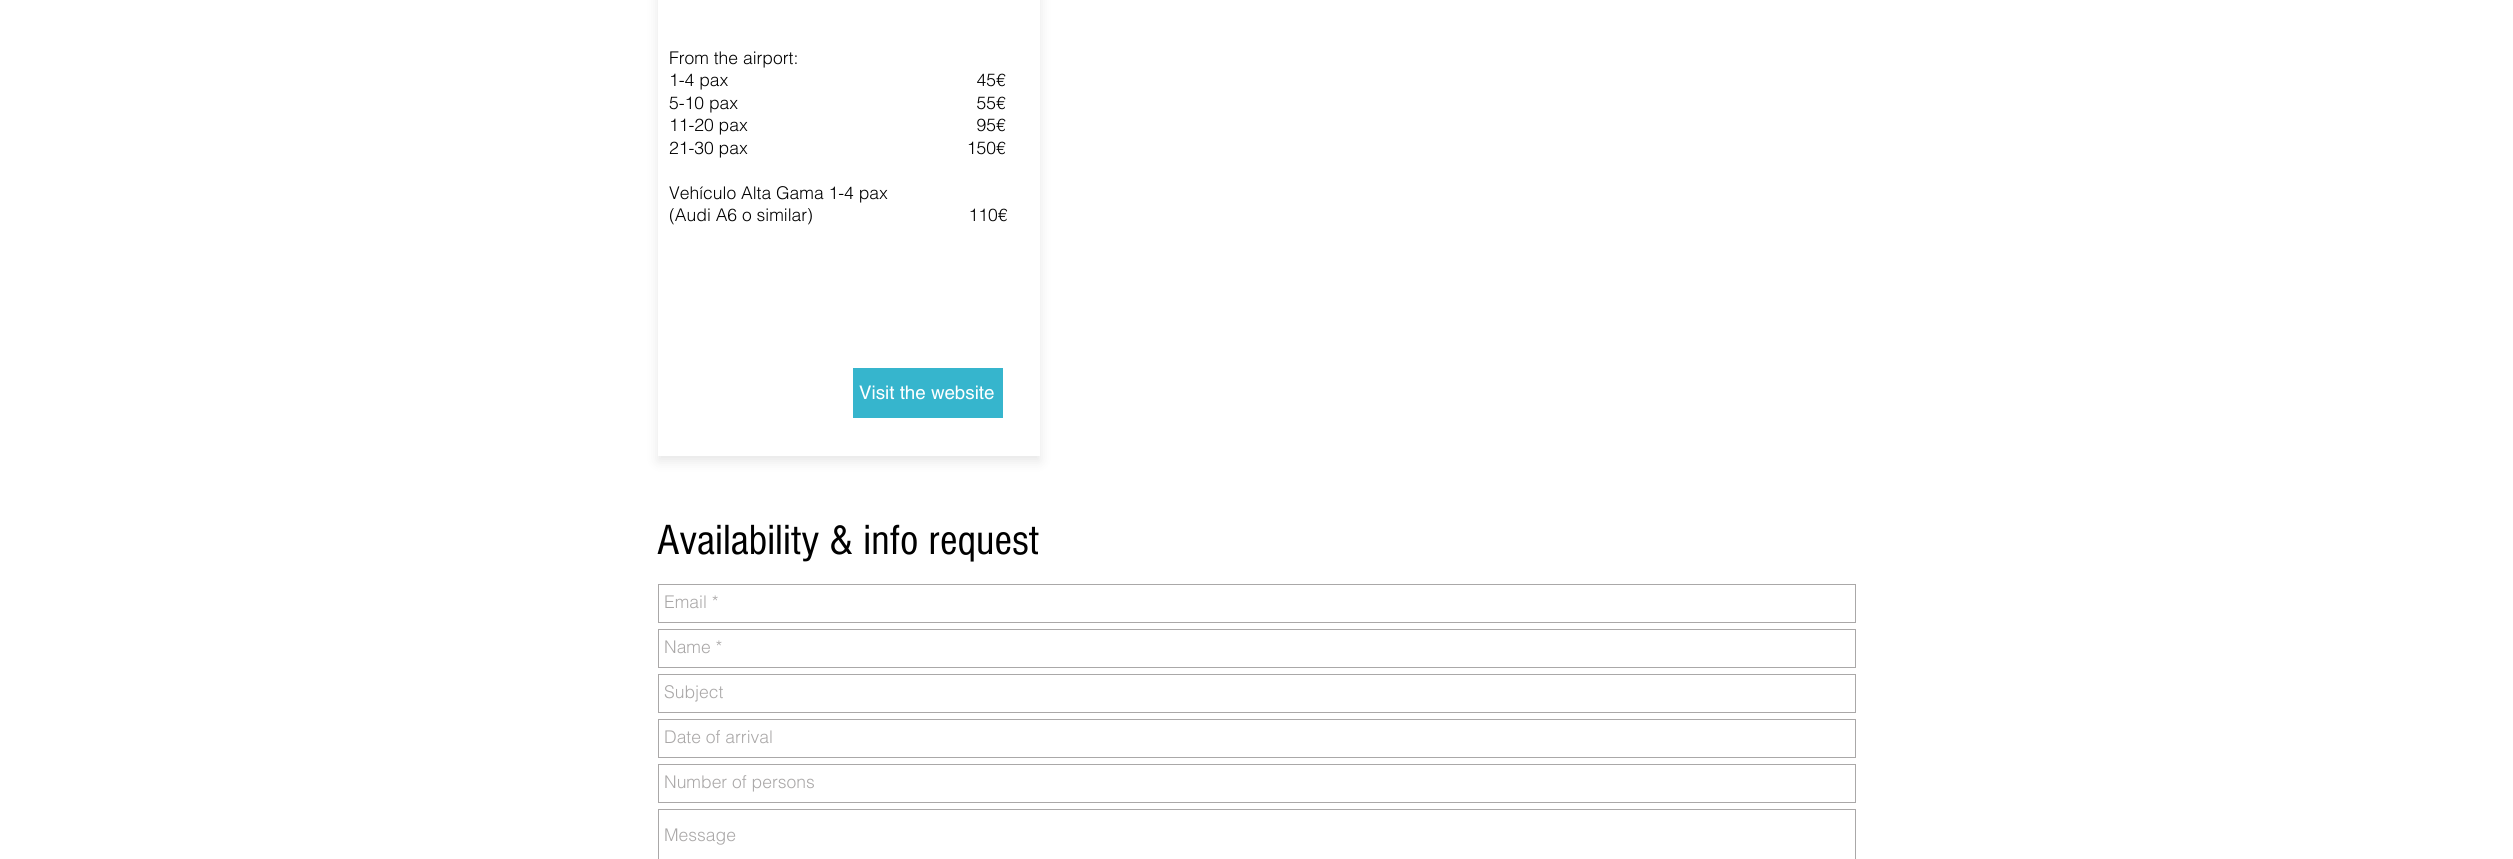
#include <cairo/cairo.h>
#include <math.h>
#include <stddef.h>

typedef struct { double x, y; const char *s; } line_t;
static cairo_t *cr;

static void rgb(unsigned color)
{
	cairo_set_source_rgb(cr, (color >> 16) / 255.0, (color >> 8 & 255) / 255.0, (color & 255) / 255.0);
}

static void rrect(double x, double y, double w, double h, double r)
{
	cairo_new_sub_path(cr);
	cairo_arc(cr, x + w - r, y + h - r, r, 0, M_PI / 2);
	cairo_arc(cr, x + r, y + h - r, r, M_PI / 2, M_PI);
	cairo_arc(cr, x + r, y + r, r, M_PI, 1.5 * M_PI);
	cairo_arc(cr, x + w - r, y + r, r, 1.5 * M_PI, 2 * M_PI);
	cairo_close_path(cr);
}

static void soft_shadow(double x, double y, double w, double h, double r, double blur, double alpha)
{
	cairo_push_group_with_content(cr, CAIRO_CONTENT_ALPHA);
	cairo_set_operator(cr, CAIRO_OPERATOR_SOURCE);
	for (int i = 15; i >= -15 && fmin(w, h) + blur * i / 3 > 0; i -= 2) {
		double e = blur * i / 6;
		cairo_set_source_rgba(cr, 0, 0, 0, alpha * erfc((i - 1) / 8.5) / 2);
		rrect(x - e, y - e, w + 2 * e, h + 2 * e, fmax(0, fmin(r + e + blur * .6, fmin(w, h) / 2 + e)));
		cairo_fill(cr);
	}
	cairo_pattern_t *soft = cairo_pop_group(cr);
	cairo_mask(cr, soft);
	cairo_pattern_destroy(soft);
}

int main(void) {
	cairo_surface_t *surface = cairo_image_surface_create(CAIRO_FORMAT_RGB24, 2513, 859);
	cr = cairo_create(surface);
	cairo_font_options_t *options = cairo_font_options_create();
	cairo_font_options_set_hint_metrics(options, CAIRO_HINT_METRICS_OFF);
	cairo_font_options_set_hint_style(options, CAIRO_HINT_STYLE_NONE);
	cairo_set_font_options(cr, options);
	cairo_set_miter_limit(cr, 4);
	rgb(0xffffff);
	cairo_paint(cr);
	cairo_save(cr);
	cairo_set_fill_rule(cr, CAIRO_FILL_RULE_EVEN_ODD);
	cairo_new_path(cr);
	cairo_move_to(cr, 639, 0);
	cairo_line_to(cr, 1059, 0);
	cairo_line_to(cr, 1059, 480);
	cairo_line_to(cr, 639, 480);
	cairo_close_path(cr);
	cairo_move_to(cr, 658, -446);
	cairo_line_to(cr, 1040, -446);
	cairo_line_to(cr, 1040, 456);
	cairo_line_to(cr, 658, 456);
	cairo_close_path(cr);
	cairo_clip(cr);
	rgb(0x000000);
	soft_shadow(658, -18, 382, 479, 0, 6, 0.1);
	cairo_restore(cr);
	rgb(0x36b5cd);
	cairo_rectangle(cr, 853, 368, 150, 50);
	cairo_fill(cr);
	cairo_rectangle(cr, 658.5, 584.5, 1197, 38);
	rgb(0xaaa8a8);
	cairo_set_line_width(cr, 1);
	cairo_stroke(cr);
	cairo_rectangle(cr, 658.5, 629.5, 1197, 38);
	cairo_stroke(cr);
	cairo_rectangle(cr, 658.5, 674.5, 1197, 38);
	cairo_stroke(cr);
	cairo_rectangle(cr, 658.5, 719.5, 1197, 38);
	cairo_stroke(cr);
	cairo_rectangle(cr, 658.5, 764.5, 1197, 38);
	cairo_stroke(cr);
	cairo_rectangle(cr, 658.5, 809.5, 1197, 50);
	cairo_stroke(cr);
	cairo_select_font_face(cr, "helvetica Light", CAIRO_FONT_SLANT_NORMAL, CAIRO_FONT_WEIGHT_NORMAL);
	cairo_set_font_size(cr, 17.5);
	rgb(0x000000);
	{
		static const line_t items[] = {
			{669, 64, "From the airport:"},
			{669, 86, "1-4 pax                                                   45€"},
			{669, 109, "5-10 pax                                                 55€"},
			{669, 131, "11-20 pax                                               95€"},
			{669, 154, "21-30 pax                                             150€"},
			{669, 199, "Vehículo Alta Gama 1-4 pax"},
			{669, 221, "(Audi A6 o similar)                                110€"},
		};
		for (size_t i = 0; i < sizeof items / sizeof *items; i++) {
			cairo_move_to(cr, items[i].x, items[i].y);
			cairo_show_text(cr, items[i].s);
		}
	}
	cairo_select_font_face(cr, "helvetica", CAIRO_FONT_SLANT_NORMAL, CAIRO_FONT_WEIGHT_NORMAL);
	cairo_set_font_size(cr, 18.75);
	rgb(0xffffff);
	cairo_move_to(cr, 859, 399);
	cairo_show_text(cr, "Visit the website");
	cairo_select_font_face(cr, "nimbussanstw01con", CAIRO_FONT_SLANT_NORMAL, CAIRO_FONT_WEIGHT_NORMAL);
	cairo_set_font_size(cr, 43.75);
	rgb(0x000000);
	cairo_move_to(cr, 657, 554);
	cairo_show_text(cr, "Availability & info request");
	cairo_select_font_face(cr, "helvetica Light", CAIRO_FONT_SLANT_NORMAL, CAIRO_FONT_WEIGHT_NORMAL);
	cairo_set_font_size(cr, 17.5);
	rgb(0xaaa8a8);
	{
		static const line_t items[] = {
			{664, 608, "Email *"},
			{664, 653, "Name *"},
			{664, 698, "Subject"},
			{664, 743, "Date of arrival"},
			{664, 788, "Number of persons"},
			{664, 841, "Message"},
		};
		for (size_t i = 0; i < sizeof items / sizeof *items; i++) {
			cairo_move_to(cr, items[i].x, items[i].y);
			cairo_show_text(cr, items[i].s);
		}
	}
	cairo_surface_write_to_png(surface, "page.png");
	cairo_font_options_destroy(options);
	cairo_destroy(cr);
	cairo_surface_destroy(surface);
	return 0;
}
